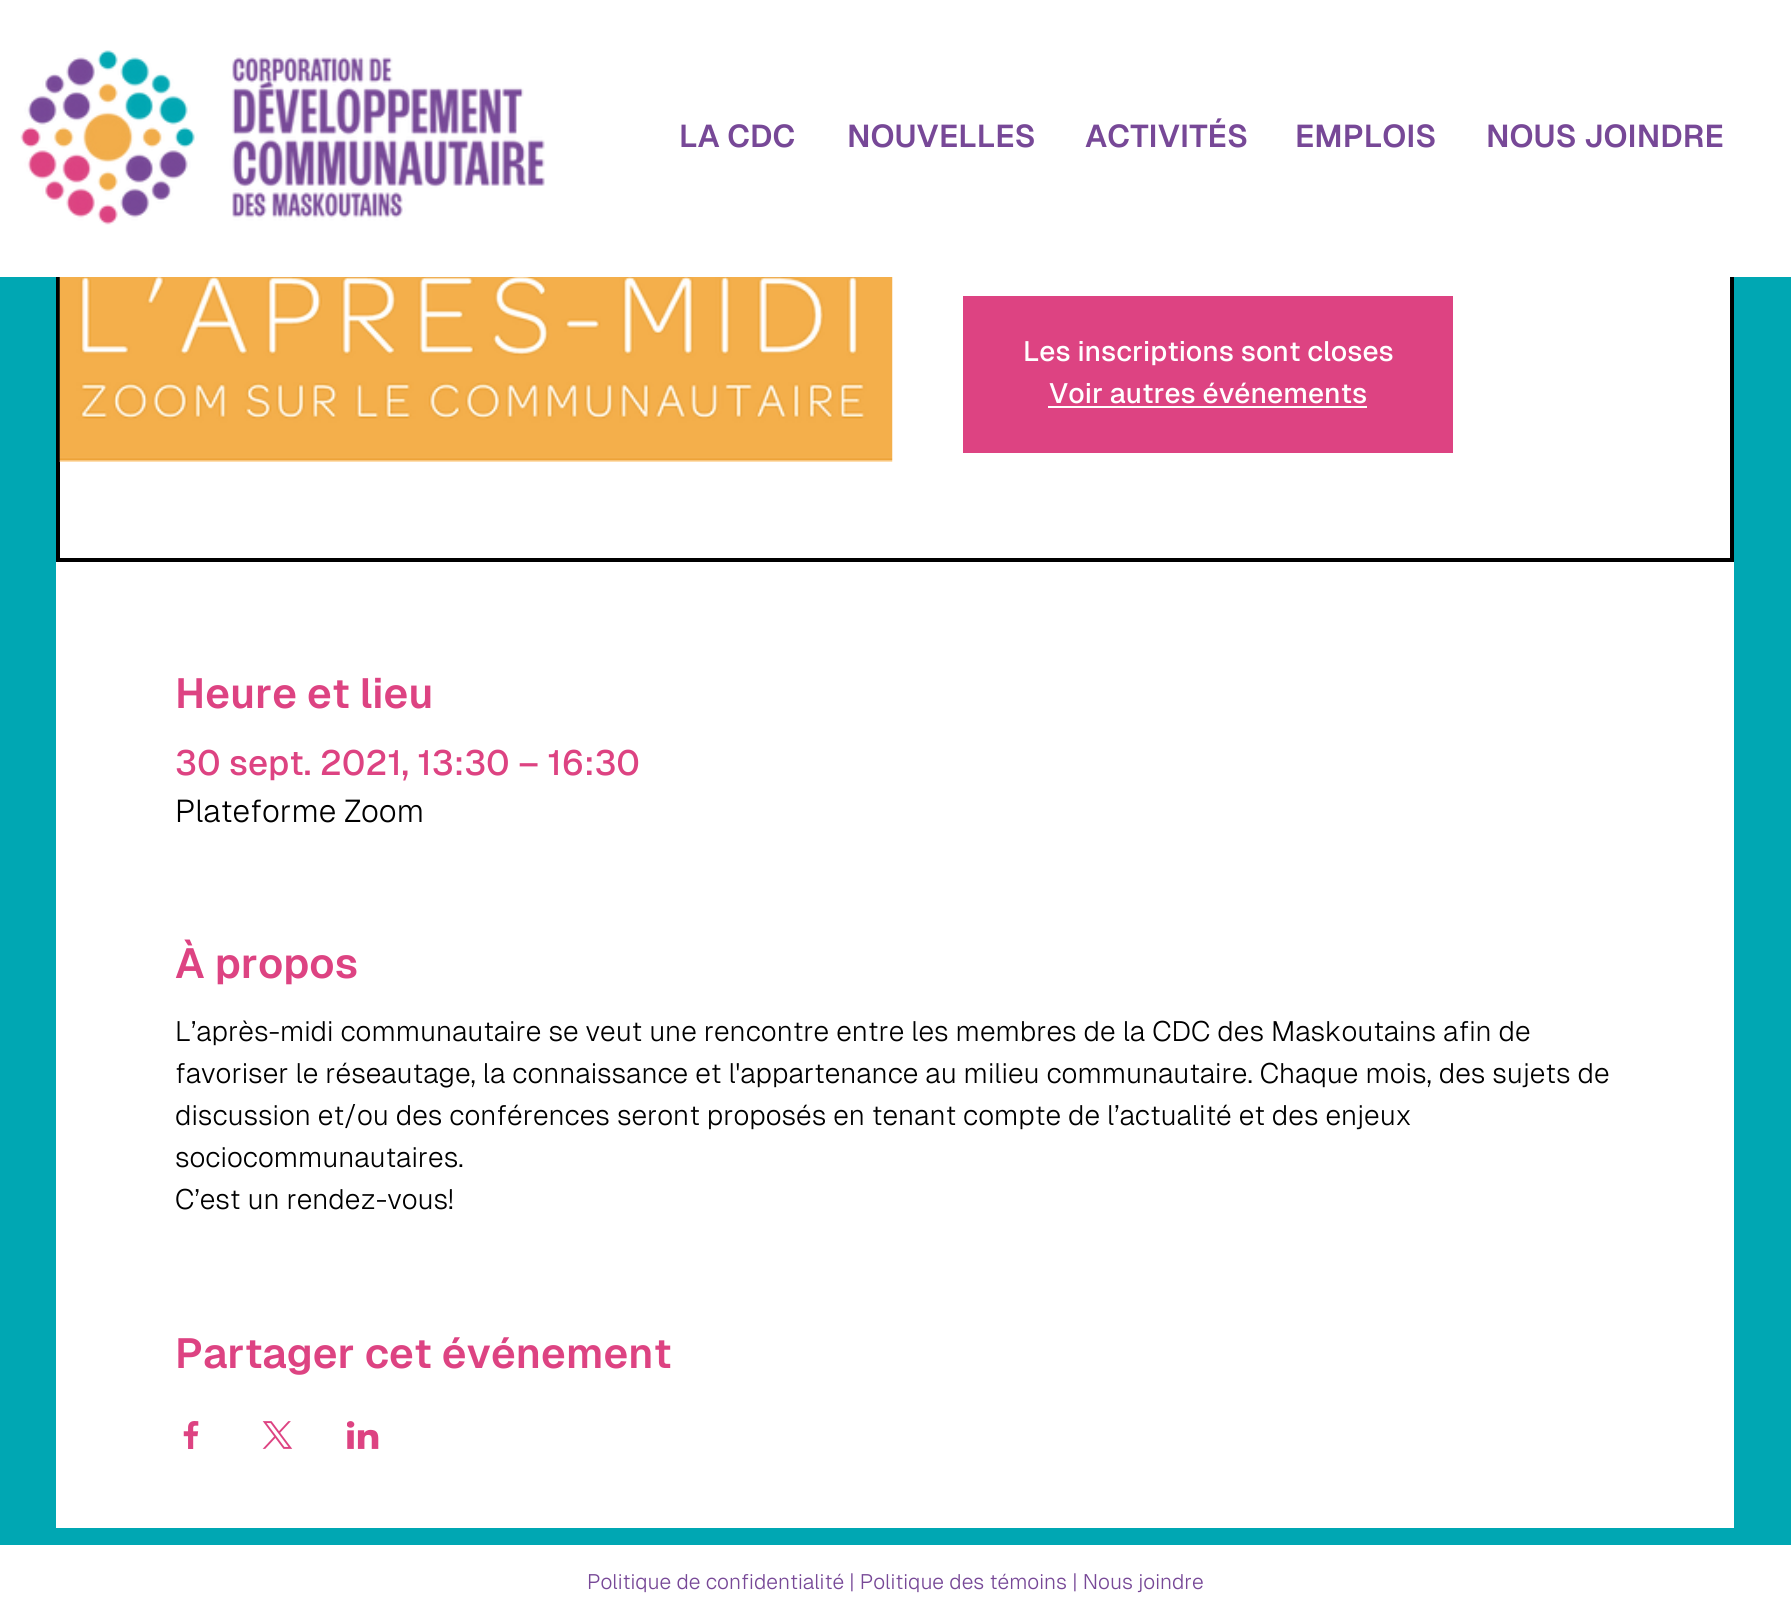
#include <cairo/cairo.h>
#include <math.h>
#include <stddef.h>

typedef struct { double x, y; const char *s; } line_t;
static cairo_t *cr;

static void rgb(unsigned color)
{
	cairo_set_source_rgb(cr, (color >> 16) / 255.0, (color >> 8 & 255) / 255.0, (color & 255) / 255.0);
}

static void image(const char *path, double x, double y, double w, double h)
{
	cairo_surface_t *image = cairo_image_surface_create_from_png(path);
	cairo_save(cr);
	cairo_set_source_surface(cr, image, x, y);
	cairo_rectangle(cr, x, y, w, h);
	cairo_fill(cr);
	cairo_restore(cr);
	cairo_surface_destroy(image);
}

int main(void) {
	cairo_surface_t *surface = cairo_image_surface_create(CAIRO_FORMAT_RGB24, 1791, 1615);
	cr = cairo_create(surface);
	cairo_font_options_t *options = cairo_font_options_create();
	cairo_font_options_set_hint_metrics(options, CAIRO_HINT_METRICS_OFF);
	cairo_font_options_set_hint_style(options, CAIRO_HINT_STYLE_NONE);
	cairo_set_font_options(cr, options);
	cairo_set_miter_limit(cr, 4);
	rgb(0xffffff);
	cairo_paint(cr);
	rgb(0x00a7b3);
	cairo_rectangle(cr, 0, 277, 1791, 1268);
	cairo_fill(cr);
	rgb(0xffffff);
	cairo_rectangle(cr, 56, 277, 1678, 1251);
	cairo_fill(cr);
	cairo_rectangle(cr, 58, -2, 1674, 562);
	rgb(0x000000);
	cairo_set_line_width(cr, 4);
	cairo_stroke(cr);
	rgb(0xffffff);
	cairo_rectangle(cr, 56, 0, 1678, 277);
	cairo_fill(cr);
	image("img/1.png", 20, 50, 525, 175);
	image("img/2.png", 59, 277, 834, 185);
	rgb(0xdd4382);
	cairo_rectangle(cr, 963, 296, 490, 157);
	cairo_fill(cr);
	rgb(0xffffff);
	cairo_rectangle(cr, 1048, 406, 319, 2);
	cairo_fill(cr);
	image("img/3.png", 183, 1421, 16, 28);
	image("img/4.png", 262, 1421, 31, 28);
	image("img/5.png", 347, 1421, 32, 28);
	cairo_select_font_face(cr, "Geist SemiBold", CAIRO_FONT_SLANT_NORMAL, CAIRO_FONT_WEIGHT_NORMAL);
	cairo_set_font_size(cr, 31.5);
	rgb(0x774897);
	{
		static const line_t items[] = {
			{679, 147, "LA CDC"},
			{847, 147, "NOUVELLES"},
			{1085, 147, "ACTIVITÉS"},
			{1295, 147, "EMPLOIS"},
			{1486, 147, "NOUS JOINDRE"},
		};
		for (size_t i = 0; i < sizeof items / sizeof *items; i++) {
			cairo_move_to(cr, items[i].x, items[i].y);
			cairo_show_text(cr, items[i].s);
		}
	}
	cairo_select_font_face(cr, "Geist Medium", CAIRO_FONT_SLANT_NORMAL, CAIRO_FONT_WEIGHT_NORMAL);
	cairo_set_font_size(cr, 28);
	rgb(0xffffff);
	cairo_move_to(cr, 1023, 361);
	cairo_show_text(cr, "Les inscriptions sont closes");
	cairo_move_to(cr, 1049, 403);
	cairo_show_text(cr, "Voir autres événements");
	cairo_select_font_face(cr, "Geist SemiBold", CAIRO_FONT_SLANT_NORMAL, CAIRO_FONT_WEIGHT_NORMAL);
	cairo_set_font_size(cr, 42);
	rgb(0xdd4382);
	cairo_move_to(cr, 175, 708);
	cairo_show_text(cr, "Heure et lieu");
	cairo_select_font_face(cr, "Geist Medium", CAIRO_FONT_SLANT_NORMAL, CAIRO_FONT_WEIGHT_NORMAL);
	cairo_set_font_size(cr, 35);
	cairo_move_to(cr, 175, 775);
	cairo_show_text(cr, "30 sept. 2021, 13:30 – 16:30");
	cairo_select_font_face(cr, "Geist Light", CAIRO_FONT_SLANT_NORMAL, CAIRO_FONT_WEIGHT_NORMAL);
	cairo_set_font_size(cr, 31.5);
	rgb(0x000000);
	cairo_move_to(cr, 175, 822);
	cairo_show_text(cr, "Plateforme Zoom");
	cairo_select_font_face(cr, "Geist SemiBold", CAIRO_FONT_SLANT_NORMAL, CAIRO_FONT_WEIGHT_NORMAL);
	cairo_set_font_size(cr, 42);
	rgb(0xdd4382);
	cairo_move_to(cr, 175, 978);
	cairo_show_text(cr, "À propos");
	cairo_select_font_face(cr, "Geist Light", CAIRO_FONT_SLANT_NORMAL, CAIRO_FONT_WEIGHT_NORMAL);
	cairo_set_font_size(cr, 28);
	rgb(0x000000);
	{
		static const line_t items[] = {
			{175, 1041, "L’après-midi communautaire se veut une rencontre entre les membres de la CDC des Maskoutains afin de"},
			{175, 1083, "favoriser le réseautage, la connaissance et l'appartenance au milieu communautaire. Chaque mois, des sujets de"},
			{175, 1125, "discussion et/ou des conférences seront proposés en tenant compte de l’actualité et des enjeux"},
			{175, 1167, "sociocommunautaires."},
			{175, 1209, "C’est un rendez-vous!"},
		};
		for (size_t i = 0; i < sizeof items / sizeof *items; i++) {
			cairo_move_to(cr, items[i].x, items[i].y);
			cairo_show_text(cr, items[i].s);
		}
	}
	cairo_select_font_face(cr, "Geist SemiBold", CAIRO_FONT_SLANT_NORMAL, CAIRO_FONT_WEIGHT_NORMAL);
	cairo_set_font_size(cr, 42);
	rgb(0xdd4382);
	cairo_move_to(cr, 175, 1368);
	cairo_show_text(cr, "Partager cet événement");
	cairo_select_font_face(cr, "Geist Light", CAIRO_FONT_SLANT_NORMAL, CAIRO_FONT_WEIGHT_NORMAL);
	cairo_set_font_size(cr, 21);
	rgb(0x774897);
	cairo_move_to(cr, 587, 1589);
	cairo_show_text(cr, "Politique de confidentialité | Politique des témoins | Nous joindre");
	cairo_surface_write_to_png(surface, "page.png");
	cairo_font_options_destroy(options);
	cairo_destroy(cr);
	cairo_surface_destroy(surface);
	return 0;
}
